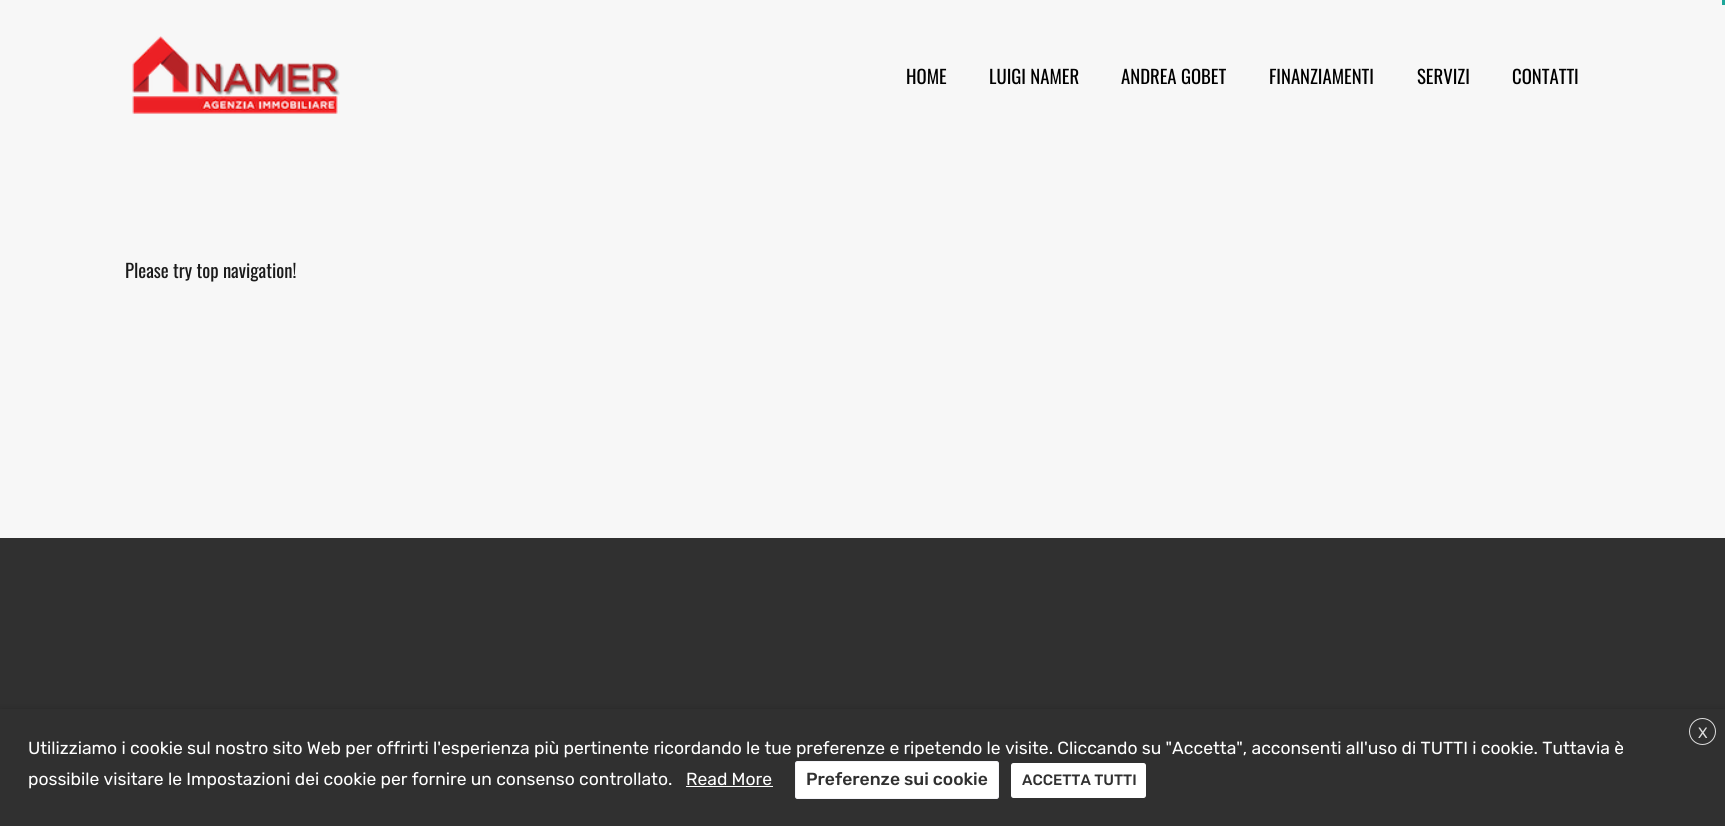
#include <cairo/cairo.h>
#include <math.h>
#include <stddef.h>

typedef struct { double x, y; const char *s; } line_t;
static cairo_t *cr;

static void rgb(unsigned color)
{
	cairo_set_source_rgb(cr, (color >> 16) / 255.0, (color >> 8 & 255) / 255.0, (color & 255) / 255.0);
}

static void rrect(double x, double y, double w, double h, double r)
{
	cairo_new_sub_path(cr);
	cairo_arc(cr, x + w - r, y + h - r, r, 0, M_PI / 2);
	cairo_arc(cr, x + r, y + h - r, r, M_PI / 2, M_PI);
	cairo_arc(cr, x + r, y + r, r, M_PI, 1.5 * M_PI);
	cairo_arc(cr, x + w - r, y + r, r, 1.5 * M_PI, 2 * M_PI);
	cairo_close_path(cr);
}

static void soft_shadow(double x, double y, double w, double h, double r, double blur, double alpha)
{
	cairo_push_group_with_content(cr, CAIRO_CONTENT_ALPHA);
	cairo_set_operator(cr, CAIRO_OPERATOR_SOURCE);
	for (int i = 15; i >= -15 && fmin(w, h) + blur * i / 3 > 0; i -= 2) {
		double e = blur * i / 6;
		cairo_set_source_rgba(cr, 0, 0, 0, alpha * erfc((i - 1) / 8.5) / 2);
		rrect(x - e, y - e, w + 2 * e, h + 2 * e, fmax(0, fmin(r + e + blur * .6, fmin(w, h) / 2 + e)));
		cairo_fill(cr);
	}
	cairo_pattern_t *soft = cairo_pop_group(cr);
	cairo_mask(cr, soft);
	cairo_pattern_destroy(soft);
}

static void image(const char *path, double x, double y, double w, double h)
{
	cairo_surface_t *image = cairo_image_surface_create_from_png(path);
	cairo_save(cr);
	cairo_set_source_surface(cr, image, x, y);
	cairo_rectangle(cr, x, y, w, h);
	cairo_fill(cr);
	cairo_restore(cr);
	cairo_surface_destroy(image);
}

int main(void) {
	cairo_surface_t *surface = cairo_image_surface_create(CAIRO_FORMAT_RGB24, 1725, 826);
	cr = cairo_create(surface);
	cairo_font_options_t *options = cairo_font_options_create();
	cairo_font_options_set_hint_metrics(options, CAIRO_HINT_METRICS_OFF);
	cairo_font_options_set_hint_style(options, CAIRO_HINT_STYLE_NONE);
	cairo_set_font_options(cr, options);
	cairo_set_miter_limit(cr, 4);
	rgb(0xf7f7f7);
	cairo_paint(cr);
	cairo_save(cr);
	cairo_rectangle(cr, 0, 0, 1725, 5);
	cairo_clip(cr);
	cairo_new_path(cr);
	cairo_move_to(cr, 1722, 2.5);
	cairo_line_to(cr, 1725, 2.5);
	rgb(0x1ea69a);
	cairo_set_line_width(cr, 5.2);
	cairo_stroke(cr);
	cairo_restore(cr);
	image("img/1.png", 132, 36, 208, 78);
	rgb(0x303030);
	cairo_rectangle(cr, 0, 538, 1725, 171);
	cairo_fill(cr);
	rgb(0x000000);
	soft_shadow(0, 715, 1725, 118, 0, 6, 0.5);
	rgb(0x303030);
	cairo_rectangle(cr, 0, 709, 1725, 117);
	cairo_fill(cr);
	cairo_arc(cr, 1702.5, 731.5, 13, 0, 2 * M_PI);
	rgb(0xdddddd);
	cairo_set_line_width(cr, 1);
	cairo_stroke(cr);
	rgb(0xffffff);
	cairo_rectangle(cr, 686, 786, 87, 1);
	cairo_fill(cr);
	rrect(795.5, 761.5, 203, 37, 2);
	cairo_fill_preserve(cr);
	rgb(0xf4f4f9);
	cairo_stroke(cr);
	rgb(0xffffff);
	rrect(1011, 763, 135, 35, 2.5);
	cairo_fill(cr);
	cairo_select_font_face(cr, "Oswald", CAIRO_FONT_SLANT_NORMAL, CAIRO_FONT_WEIGHT_NORMAL);
	cairo_set_font_size(cr, 18.75);
	rgb(0x000000);
	{
		static const line_t items[] = {
			{906, 84, "HOME"},
			{989, 84, "LUIGI NAMER"},
			{1121, 84, "ANDREA GOBET"},
			{1269, 84, "FINANZIAMENTI"},
			{1417, 84, "SERVIZI"},
			{1512, 84, "CONTATTI"},
		};
		for (size_t i = 0; i < sizeof items / sizeof *items; i++) {
			cairo_move_to(cr, items[i].x, items[i].y);
			cairo_show_text(cr, items[i].s);
		}
	}
	rgb(0x1a1a1a);
	cairo_move_to(cr, 125, 278);
	cairo_show_text(cr, "Please try top navigation!");
	cairo_select_font_face(cr, "Rubik", CAIRO_FONT_SLANT_NORMAL, CAIRO_FONT_WEIGHT_NORMAL);
	cairo_set_font_size(cr, 15);
	rgb(0xdddddd);
	cairo_move_to(cr, 1698, 738);
	cairo_show_text(cr, "X");
	cairo_set_font_size(cr, 17.5);
	rgb(0xffffff);
	{
		static const line_t items[] = {
			{28, 754, "Utilizziamo i cookie sul nostro sito Web per offrirti l'esperienza più pertinente ricordando le tue preferenze e ripetendo le visite. Cliccando su \"Accetta\", acconsenti all'uso di TUTTI i cookie. Tuttavia è"},
			{28, 785, "possibile visitare le Impostazioni dei cookie per fornire un consenso controllato."},
			{686, 785, "Read More"},
		};
		for (size_t i = 0; i < sizeof items / sizeof *items; i++) {
			cairo_move_to(cr, items[i].x, items[i].y);
			cairo_show_text(cr, items[i].s);
		}
	}
	cairo_select_font_face(cr, "Rubik Medium", CAIRO_FONT_SLANT_NORMAL, CAIRO_FONT_WEIGHT_NORMAL);
	rgb(0x303030);
	cairo_move_to(cr, 806, 785);
	cairo_show_text(cr, "Preferenze sui cookie");
	cairo_set_font_size(cr, 15);
	cairo_move_to(cr, 1022, 785);
	cairo_show_text(cr, "ACCETTA TUTTI");
	cairo_surface_write_to_png(surface, "page.png");
	cairo_font_options_destroy(options);
	cairo_destroy(cr);
	cairo_surface_destroy(surface);
	return 0;
}
